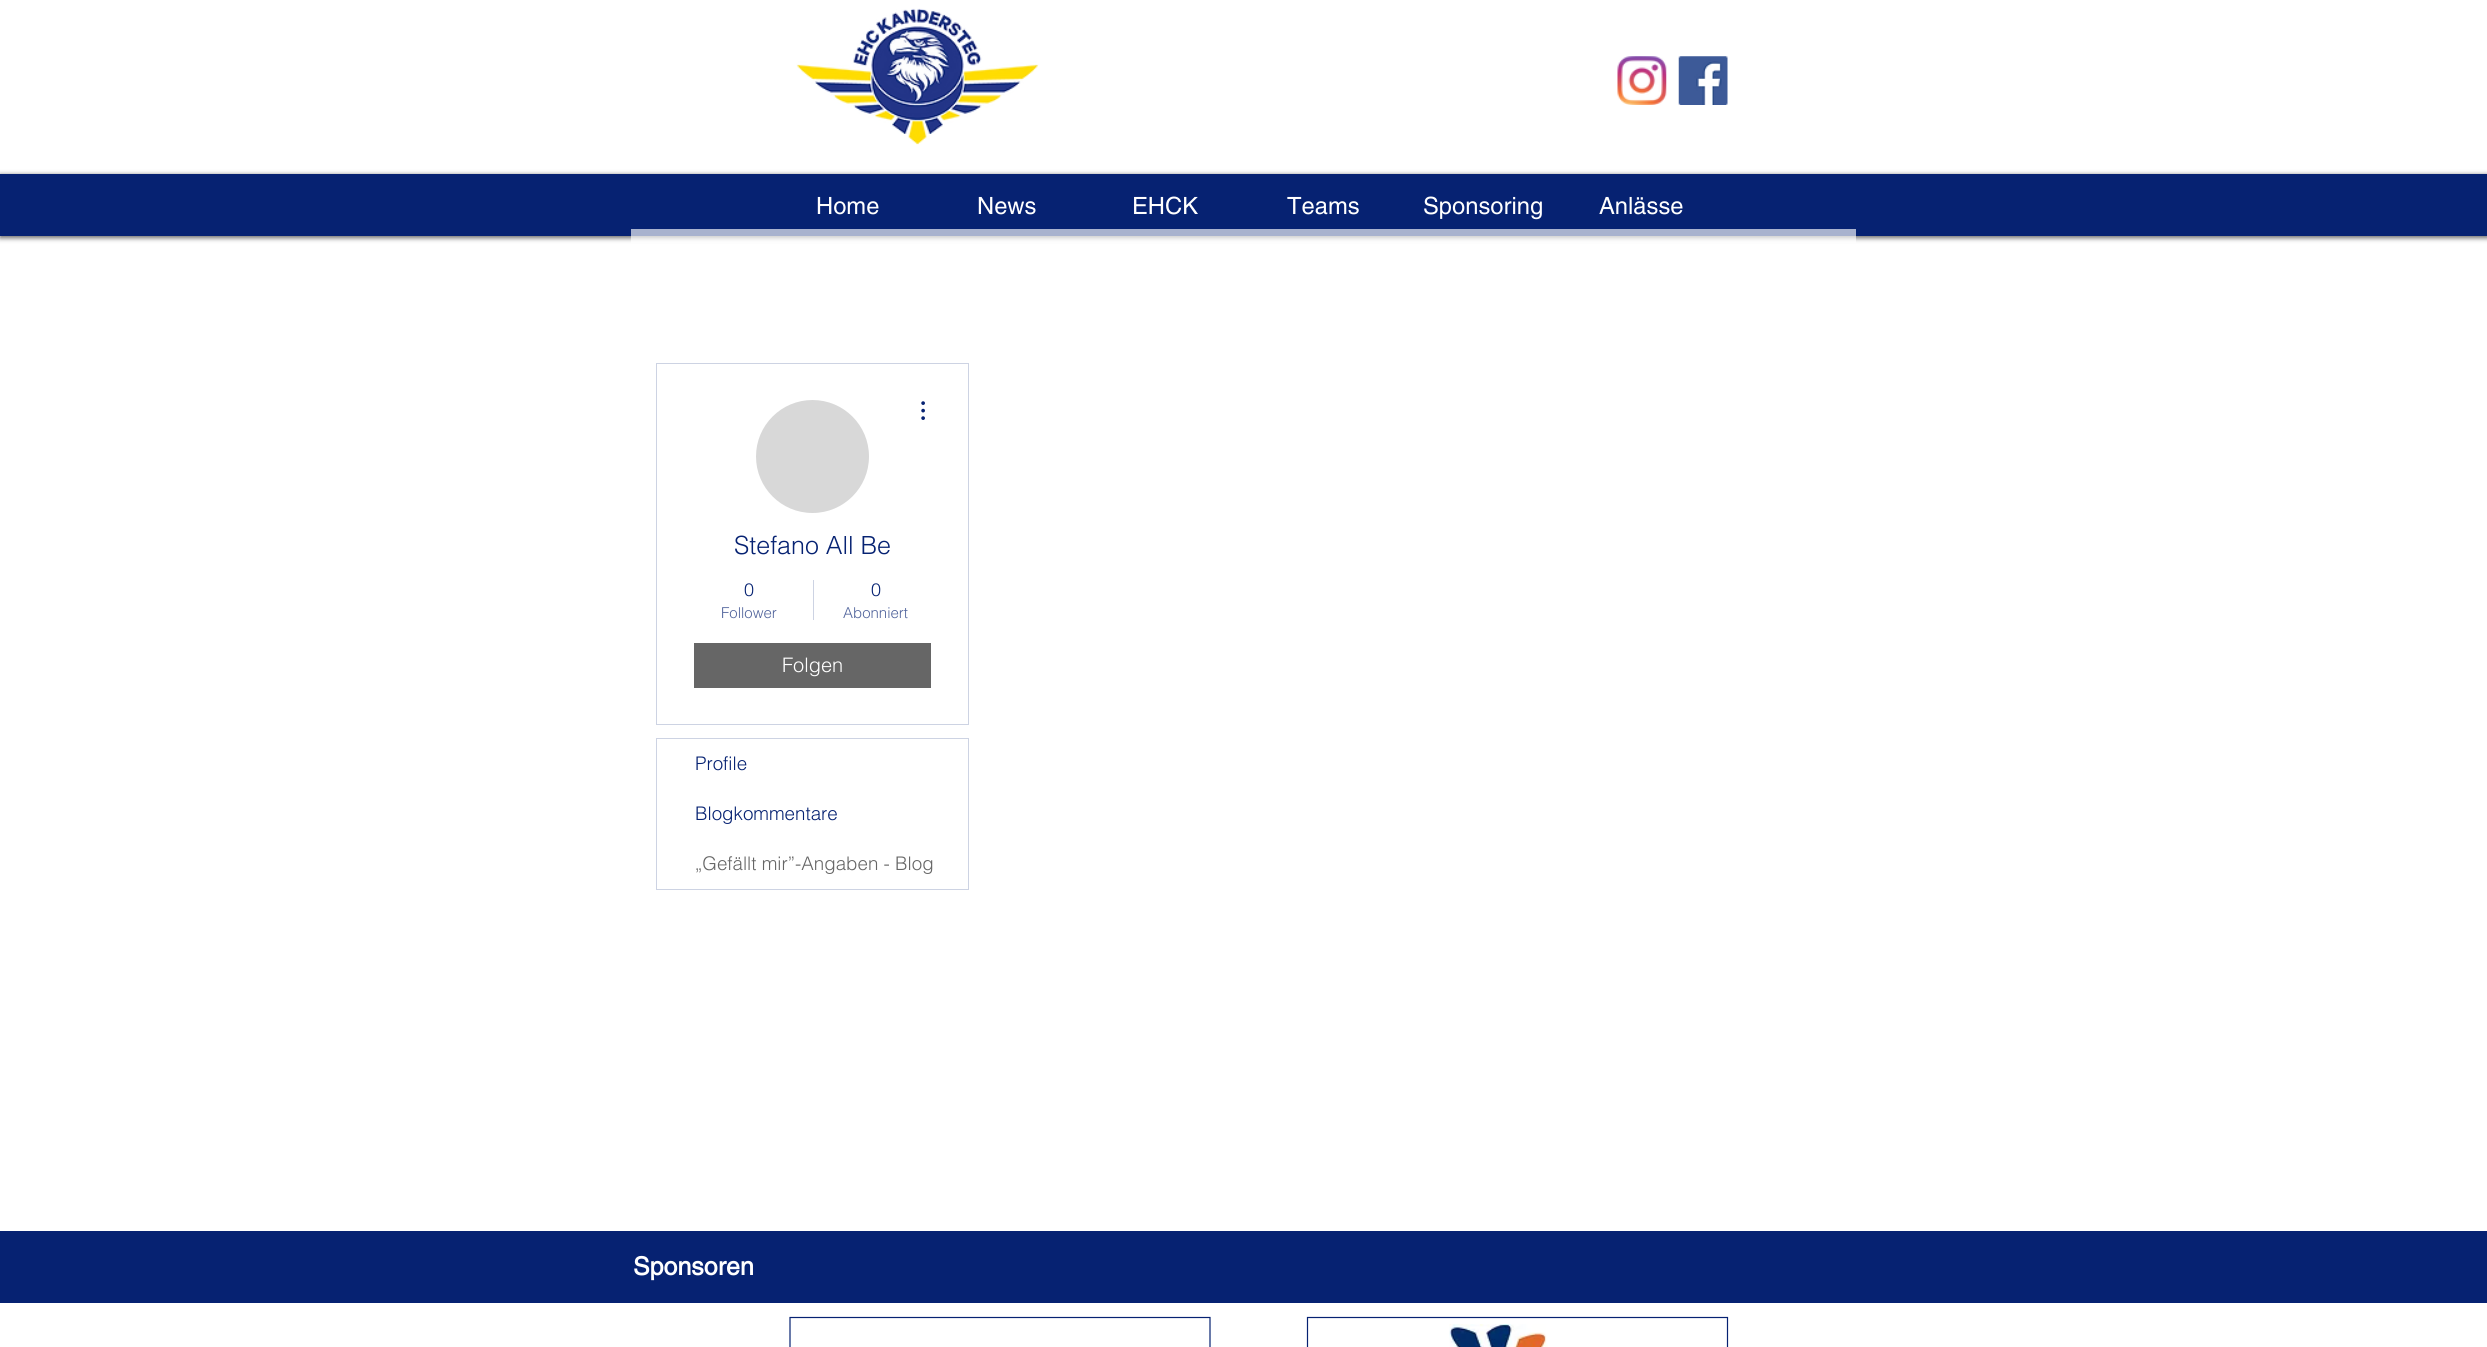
#include <cairo/cairo.h>
#include <math.h>
#include <stddef.h>

typedef struct { double x, y; const char *s; } line_t;
static cairo_t *cr;

static void rgb(unsigned color)
{
	cairo_set_source_rgb(cr, (color >> 16) / 255.0, (color >> 8 & 255) / 255.0, (color & 255) / 255.0);
}

static void rrect(double x, double y, double w, double h, double r)
{
	cairo_new_sub_path(cr);
	cairo_arc(cr, x + w - r, y + h - r, r, 0, M_PI / 2);
	cairo_arc(cr, x + r, y + h - r, r, M_PI / 2, M_PI);
	cairo_arc(cr, x + r, y + r, r, M_PI, 1.5 * M_PI);
	cairo_arc(cr, x + w - r, y + r, r, 1.5 * M_PI, 2 * M_PI);
	cairo_close_path(cr);
}

static void soft_shadow(double x, double y, double w, double h, double r, double blur, double alpha)
{
	cairo_push_group_with_content(cr, CAIRO_CONTENT_ALPHA);
	cairo_set_operator(cr, CAIRO_OPERATOR_SOURCE);
	for (int i = 15; i >= -15 && fmin(w, h) + blur * i / 3 > 0; i -= 2) {
		double e = blur * i / 6;
		cairo_set_source_rgba(cr, 0, 0, 0, alpha * erfc((i - 1) / 8.5) / 2);
		rrect(x - e, y - e, w + 2 * e, h + 2 * e, fmax(0, fmin(r + e + blur * .6, fmin(w, h) / 2 + e)));
		cairo_fill(cr);
	}
	cairo_pattern_t *soft = cairo_pop_group(cr);
	cairo_mask(cr, soft);
	cairo_pattern_destroy(soft);
}

static void image(const char *path, double x, double y, double w, double h)
{
	cairo_surface_t *image = cairo_image_surface_create_from_png(path);
	cairo_save(cr);
	cairo_set_source_surface(cr, image, x, y);
	cairo_rectangle(cr, x, y, w, h);
	cairo_fill(cr);
	cairo_restore(cr);
	cairo_surface_destroy(image);
}

int main(void) {
	cairo_surface_t *surface = cairo_image_surface_create(CAIRO_FORMAT_RGB24, 2487, 1347);
	cr = cairo_create(surface);
	cairo_font_options_t *options = cairo_font_options_create();
	cairo_font_options_set_hint_metrics(options, CAIRO_HINT_METRICS_OFF);
	cairo_font_options_set_hint_style(options, CAIRO_HINT_STYLE_NONE);
	cairo_set_font_options(cr, options);
	cairo_set_miter_limit(cr, 4);
	rgb(0xffffff);
	cairo_paint(cr);
	image("img/1.png", 796, 8, 243, 137);
	image("img/2.png", 1617, 56, 50, 49);
	image("img/3.png", 1678, 56, 50, 49);
	rgb(0x000000);
	soft_shadow(0, 175, 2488, 63, 0, 2.5, 0.6);
	rgb(0x062272);
	cairo_rectangle(cr, 0, 174, 2487, 62);
	cairo_fill(cr);
	cairo_set_source_rgba(cr, 1, 1, 1, 0.65);
	cairo_rectangle(cr, 631, 229, 1225, 14);
	cairo_fill(cr);
	cairo_rectangle(cr, 656.5, 363.5, 312, 361);
	rgb(0xcdd3e3);
	cairo_set_line_width(cr, 1);
	cairo_stroke(cr);
	rgb(0xd8d8d8);
	cairo_arc(cr, 812.5, 456.5, 56.5, 0, 2 * M_PI);
	cairo_fill(cr);
	image("img/4.png", 921, 401, 4, 19);
	rgb(0xcdd3e3);
	cairo_rectangle(cr, 813, 580, 1, 40);
	cairo_fill(cr);
	rgb(0x666666);
	cairo_rectangle(cr, 694, 643, 237, 45);
	cairo_fill(cr);
	cairo_rectangle(cr, 656.5, 738.5, 312, 151);
	rgb(0xcdd3e3);
	cairo_stroke(cr);
	rgb(0x062272);
	cairo_rectangle(cr, 0, 1231, 2487, 72);
	cairo_fill(cr);
	cairo_new_path(cr);
	cairo_move_to(cr, 1210, 1317.5);
	cairo_line_to(cr, 1210, 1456.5);
	cairo_line_to(cr, 790, 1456.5);
	cairo_line_to(cr, 790, 1317.5);
	cairo_close_path(cr);
	cairo_set_line_width(cr, 1.2);
	cairo_stroke(cr);
	cairo_new_path(cr);
	cairo_move_to(cr, 1727.5, 1317.5);
	cairo_line_to(cr, 1727.5, 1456.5);
	cairo_line_to(cr, 1307.5, 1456.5);
	cairo_line_to(cr, 1307.5, 1317.5);
	cairo_close_path(cr);
	cairo_stroke(cr);
	image("img/5.png", 1449, 1324, 99, 23);
	cairo_select_font_face(cr, "helvetica", CAIRO_FONT_SLANT_NORMAL, CAIRO_FONT_WEIGHT_NORMAL);
	cairo_set_font_size(cr, 23.75);
	rgb(0xffffff);
	{
		static const line_t items[] = {
			{816, 214, "Home"},
			{977, 214, "News"},
			{1132, 214, "EHCK"},
			{1287, 214, "Teams"},
			{1423, 214, "Sponsoring"},
			{1599, 214, "Anlässe"},
		};
		for (size_t i = 0; i < sizeof items / sizeof *items; i++) {
			cairo_move_to(cr, items[i].x, items[i].y);
			cairo_show_text(cr, items[i].s);
		}
	}
	cairo_select_font_face(cr, "helvetica Light", CAIRO_FONT_SLANT_NORMAL, CAIRO_FONT_WEIGHT_NORMAL);
	cairo_set_font_size(cr, 25);
	rgb(0x062272);
	cairo_move_to(cr, 734, 554);
	cairo_show_text(cr, "Stefano All Be");
	cairo_set_font_size(cr, 18);
	cairo_move_to(cr, 744, 596);
	cairo_show_text(cr, "0");
	cairo_set_font_size(cr, 15);
	rgb(0x51649c);
	cairo_move_to(cr, 721, 618);
	cairo_show_text(cr, "Follower");
	cairo_set_font_size(cr, 18);
	rgb(0x062272);
	cairo_move_to(cr, 871, 596);
	cairo_show_text(cr, "0");
	cairo_set_font_size(cr, 15);
	rgb(0x51649c);
	cairo_move_to(cr, 843, 618);
	cairo_show_text(cr, "Abonniert");
	cairo_set_font_size(cr, 20);
	rgb(0xffffff);
	cairo_move_to(cr, 782, 672);
	cairo_show_text(cr, "Folgen");
	cairo_set_font_size(cr, 18.75);
	rgb(0x062272);
	cairo_move_to(cr, 695, 770);
	cairo_show_text(cr, "Profile");
	cairo_move_to(cr, 695, 820);
	cairo_show_text(cr, "Blogkommentare");
	rgb(0x666666);
	cairo_move_to(cr, 695, 870);
	cairo_show_text(cr, "„Gefällt mir”-Angaben - Blog");
	cairo_select_font_face(cr, "helvetica", CAIRO_FONT_SLANT_NORMAL, CAIRO_FONT_WEIGHT_BOLD);
	cairo_set_font_size(cr, 25);
	rgb(0xffffff);
	cairo_move_to(cr, 633, 1275);
	cairo_show_text(cr, "Sponsoren");
	cairo_surface_write_to_png(surface, "page.png");
	cairo_font_options_destroy(options);
	cairo_destroy(cr);
	cairo_surface_destroy(surface);
	return 0;
}
